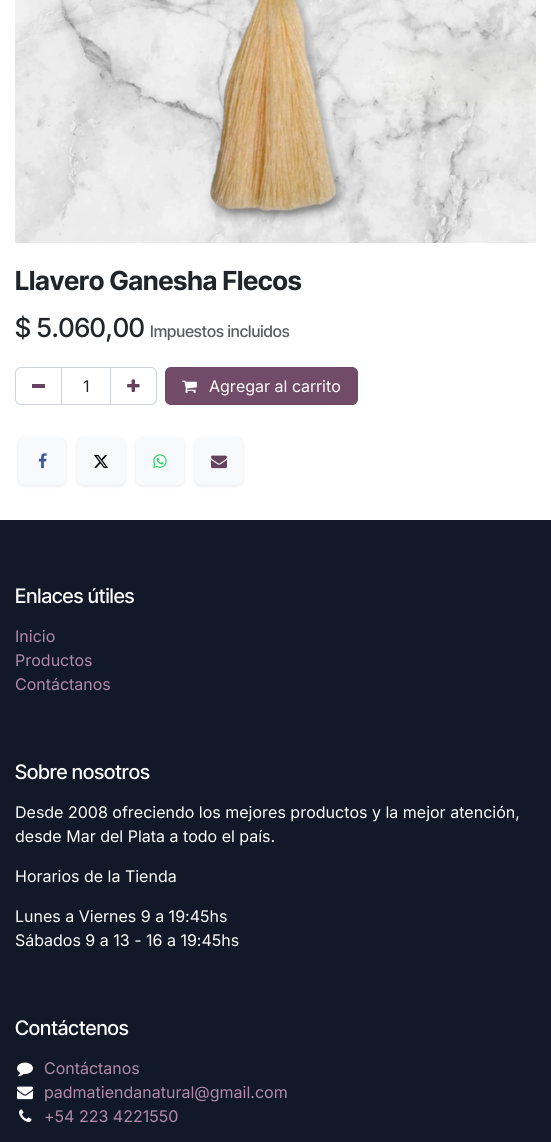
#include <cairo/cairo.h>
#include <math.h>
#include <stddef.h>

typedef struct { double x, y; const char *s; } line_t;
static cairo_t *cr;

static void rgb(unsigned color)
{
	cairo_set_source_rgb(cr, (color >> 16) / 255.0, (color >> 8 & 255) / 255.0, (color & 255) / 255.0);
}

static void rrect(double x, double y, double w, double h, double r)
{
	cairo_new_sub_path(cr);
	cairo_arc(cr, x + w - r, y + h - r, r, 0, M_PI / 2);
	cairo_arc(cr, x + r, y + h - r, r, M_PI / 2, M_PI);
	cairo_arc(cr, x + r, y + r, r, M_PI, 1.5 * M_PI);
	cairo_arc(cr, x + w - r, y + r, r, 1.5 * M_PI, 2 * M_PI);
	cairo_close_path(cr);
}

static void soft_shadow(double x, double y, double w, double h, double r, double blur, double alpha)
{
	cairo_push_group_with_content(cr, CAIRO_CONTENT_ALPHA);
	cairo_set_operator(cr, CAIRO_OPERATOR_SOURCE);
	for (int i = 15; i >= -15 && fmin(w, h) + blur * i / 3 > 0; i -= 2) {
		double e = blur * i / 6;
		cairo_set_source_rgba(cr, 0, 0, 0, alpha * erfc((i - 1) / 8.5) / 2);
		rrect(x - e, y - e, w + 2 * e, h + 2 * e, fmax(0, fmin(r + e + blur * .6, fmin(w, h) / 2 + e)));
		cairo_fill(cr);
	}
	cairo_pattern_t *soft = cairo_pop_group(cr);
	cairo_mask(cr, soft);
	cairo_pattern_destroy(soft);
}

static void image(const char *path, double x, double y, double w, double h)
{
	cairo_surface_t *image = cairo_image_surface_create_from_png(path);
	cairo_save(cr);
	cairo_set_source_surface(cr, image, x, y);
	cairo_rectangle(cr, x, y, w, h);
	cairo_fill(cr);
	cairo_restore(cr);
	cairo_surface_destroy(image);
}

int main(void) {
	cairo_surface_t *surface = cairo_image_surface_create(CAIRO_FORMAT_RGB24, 551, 1142);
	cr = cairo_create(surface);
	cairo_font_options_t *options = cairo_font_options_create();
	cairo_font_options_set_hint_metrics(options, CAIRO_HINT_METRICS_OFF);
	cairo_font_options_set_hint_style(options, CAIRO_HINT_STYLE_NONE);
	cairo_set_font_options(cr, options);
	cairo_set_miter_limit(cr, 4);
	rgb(0xffffff);
	cairo_paint(cr);
	image("img/1.png", 15, 0, 521, 243);
	cairo_rectangle(cr, 61.5, 367.5, 49, 37);
	rgb(0xced4da);
	cairo_set_line_width(cr, 1);
	cairo_stroke(cr);
	cairo_new_path(cr);
	cairo_move_to(cr, 21, 367.5);
	cairo_line_to(cr, 61.5, 367.5);
	cairo_line_to(cr, 61.5, 404.5);
	cairo_line_to(cr, 21, 404.5);
	cairo_curve_to(cr, 18, 404.5, 15.5, 402, 15.5, 399);
	cairo_line_to(cr, 15.5, 373);
	cairo_curve_to(cr, 15.5, 370, 18, 367.5, 21, 367.5);
	cairo_close_path(cr);
	cairo_stroke(cr);
	rgb(0x65435c);
	cairo_rectangle(cr, 32, 384, 13, 4);
	cairo_fill(cr);
	cairo_new_path(cr);
	cairo_move_to(cr, 110.5, 367.5);
	cairo_line_to(cr, 151, 367.5);
	cairo_curve_to(cr, 154, 367.5, 156.5, 370, 156.5, 373);
	cairo_line_to(cr, 156.5, 399);
	cairo_curve_to(cr, 156.5, 402, 154, 404.5, 151, 404.5);
	cairo_line_to(cr, 110.5, 404.5);
	cairo_close_path(cr);
	rgb(0xced4da);
	cairo_stroke(cr);
	image("img/2.png", 127, 379, 13, 13);
	rgb(0x714b67);
	rrect(165.5, 367.5, 192, 37, 5.5);
	cairo_fill_preserve(cr);
	cairo_stroke(cr);
	image("img/3.png", 182, 380, 15, 14);
	rgb(0x000000);
	soft_shadow(18, 438, 48, 48, 6, 1.5, 0.1);
	rgb(0xf8f9fa);
	rrect(18, 437, 48, 48, 6);
	cairo_fill(cr);
	image("img/4.png", 38, 453, 9, 16);
	rgb(0x000000);
	soft_shadow(77, 438, 48, 48, 6, 1.5, 0.1);
	rgb(0xf8f9fa);
	rrect(77, 437, 48, 48, 6);
	cairo_fill(cr);
	image("img/5.png", 94, 454, 14, 14);
	rgb(0x000000);
	soft_shadow(136, 438, 48, 48, 6, 1.5, 0.1);
	rgb(0xf8f9fa);
	rrect(136, 437, 48, 48, 6);
	cairo_fill(cr);
	image("img/6.png", 153, 454, 14, 15);
	rgb(0x000000);
	soft_shadow(195, 438, 48, 48, 6, 1.5, 0.1);
	rgb(0xf8f9fa);
	rrect(195, 437, 48, 48, 6);
	cairo_fill(cr);
	image("img/7.png", 211, 455, 16, 14);
	rgb(0x111827);
	cairo_rectangle(cr, 0, 520, 551, 622);
	cairo_fill(cr);
	image("img/8.png", 17, 1062, 16, 15);
	image("img/9.png", 17, 1086, 16, 14);
	image("img/10.png", 19, 1109, 13, 13);
	cairo_select_font_face(cr, "Inter Tight", CAIRO_FONT_SLANT_NORMAL, CAIRO_FONT_WEIGHT_BOLD);
	cairo_set_font_size(cr, 26.25);
	rgb(0x212529);
	cairo_move_to(cr, 15, 290);
	cairo_show_text(cr, "Llavero Ganesha Flecos");
	cairo_select_font_face(cr, "Inter Tight Medium", CAIRO_FONT_SLANT_NORMAL, CAIRO_FONT_WEIGHT_NORMAL);
	cairo_move_to(cr, 15, 337);
	cairo_show_text(cr, "$ 5.060,00");
	cairo_set_font_size(cr, 16);
	rgb(0x595c5f);
	cairo_move_to(cr, 150, 337);
	cairo_show_text(cr, "Impuestos incluidos");
	cairo_select_font_face(cr, "Inter", CAIRO_FONT_SLANT_NORMAL, CAIRO_FONT_WEIGHT_NORMAL);
	rgb(0x212529);
	cairo_move_to(cr, 83, 392);
	cairo_show_text(cr, "1");
	rgb(0xffffff);
	cairo_move_to(cr, 209, 392);
	cairo_show_text(cr, "Agregar al carrito");
	cairo_select_font_face(cr, "Inter Tight Medium", CAIRO_FONT_SLANT_NORMAL, CAIRO_FONT_WEIGHT_NORMAL);
	cairo_set_font_size(cr, 20);
	cairo_move_to(cr, 15, 603);
	cairo_show_text(cr, "Enlaces útiles");
	cairo_select_font_face(cr, "Inter", CAIRO_FONT_SLANT_NORMAL, CAIRO_FONT_WEIGHT_NORMAL);
	cairo_set_font_size(cr, 16);
	rgb(0xb18aa7);
	{
		static const line_t items[] = {
			{15, 642, "Inicio"},
			{15, 666, "Productos"},
			{15, 690, "Contáctanos"},
		};
		for (size_t i = 0; i < sizeof items / sizeof *items; i++) {
			cairo_move_to(cr, items[i].x, items[i].y);
			cairo_show_text(cr, items[i].s);
		}
	}
	cairo_select_font_face(cr, "Inter Tight Medium", CAIRO_FONT_SLANT_NORMAL, CAIRO_FONT_WEIGHT_NORMAL);
	cairo_set_font_size(cr, 20);
	rgb(0xffffff);
	cairo_move_to(cr, 15, 779);
	cairo_show_text(cr, "Sobre nosotros");
	cairo_select_font_face(cr, "Inter", CAIRO_FONT_SLANT_NORMAL, CAIRO_FONT_WEIGHT_NORMAL);
	cairo_set_font_size(cr, 16);
	{
		static const line_t items[] = {
			{15, 818, "Desde 2008 ofreciendo los mejores productos y la mejor atención,"},
			{15, 842, "desde Mar del Plata a todo el país."},
			{15, 882, "Horarios de la Tienda"},
			{15, 922, "Lunes a Viernes 9 a 19:45hs"},
			{15, 946, "Sábados 9 a 13 - 16 a 19:45hs"},
		};
		for (size_t i = 0; i < sizeof items / sizeof *items; i++) {
			cairo_move_to(cr, items[i].x, items[i].y);
			cairo_show_text(cr, items[i].s);
		}
	}
	cairo_select_font_face(cr, "Inter Tight Medium", CAIRO_FONT_SLANT_NORMAL, CAIRO_FONT_WEIGHT_NORMAL);
	cairo_set_font_size(cr, 20);
	cairo_move_to(cr, 15, 1035);
	cairo_show_text(cr, "Contáctenos");
	cairo_select_font_face(cr, "Inter", CAIRO_FONT_SLANT_NORMAL, CAIRO_FONT_WEIGHT_NORMAL);
	cairo_set_font_size(cr, 16);
	rgb(0xb18aa7);
	{
		static const line_t items[] = {
			{44, 1074, "Contáctanos"},
			{44, 1098, "padmatiendanatural@gmail.com"},
			{44, 1122, "+54 223 4221550"},
		};
		for (size_t i = 0; i < sizeof items / sizeof *items; i++) {
			cairo_move_to(cr, items[i].x, items[i].y);
			cairo_show_text(cr, items[i].s);
		}
	}
	cairo_surface_write_to_png(surface, "page.png");
	cairo_font_options_destroy(options);
	cairo_destroy(cr);
	cairo_surface_destroy(surface);
	return 0;
}
